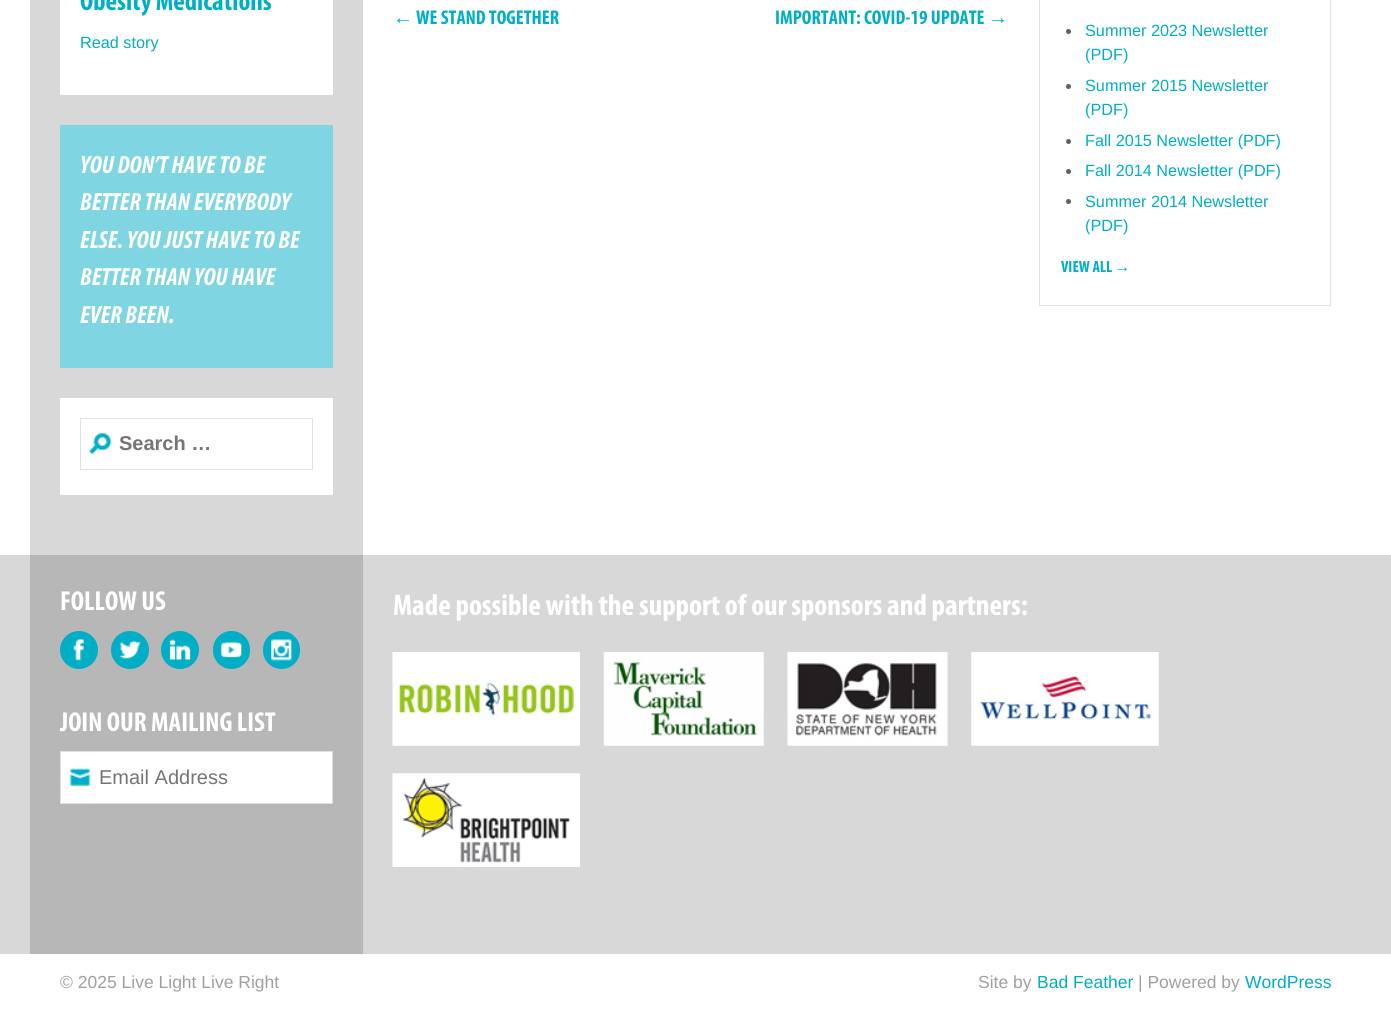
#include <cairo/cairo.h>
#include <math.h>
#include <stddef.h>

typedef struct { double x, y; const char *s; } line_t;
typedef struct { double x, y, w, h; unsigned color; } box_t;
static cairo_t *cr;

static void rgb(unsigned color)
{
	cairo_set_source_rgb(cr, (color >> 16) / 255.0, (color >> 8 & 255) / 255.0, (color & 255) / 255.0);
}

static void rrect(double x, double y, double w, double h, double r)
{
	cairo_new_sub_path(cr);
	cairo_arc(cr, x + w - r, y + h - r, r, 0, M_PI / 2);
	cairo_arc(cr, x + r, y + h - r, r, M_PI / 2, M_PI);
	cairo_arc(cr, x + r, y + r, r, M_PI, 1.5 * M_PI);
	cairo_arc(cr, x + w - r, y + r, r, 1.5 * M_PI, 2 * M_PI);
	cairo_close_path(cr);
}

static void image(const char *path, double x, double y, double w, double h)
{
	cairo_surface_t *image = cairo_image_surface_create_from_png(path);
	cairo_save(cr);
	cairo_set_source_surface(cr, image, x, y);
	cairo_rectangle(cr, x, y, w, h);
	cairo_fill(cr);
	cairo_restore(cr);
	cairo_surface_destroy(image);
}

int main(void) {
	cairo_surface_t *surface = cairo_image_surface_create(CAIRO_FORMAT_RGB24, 1391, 1025);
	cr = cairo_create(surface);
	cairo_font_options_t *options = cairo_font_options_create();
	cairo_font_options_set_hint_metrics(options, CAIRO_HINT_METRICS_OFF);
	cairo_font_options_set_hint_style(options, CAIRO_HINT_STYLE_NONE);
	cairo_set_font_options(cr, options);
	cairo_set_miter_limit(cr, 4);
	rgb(0xffffff);
	cairo_paint(cr);
	{
		static const box_t items[] = {
			{30, 0, 333, 555, 0xd8d8d8},
			{60, 0, 273, 95, 0xffffff},
			{60, 125, 273, 243, 0x7fd6e2},
			{60, 398, 273, 97, 0xffffff},
		};
		for (size_t i = 0; i < sizeof items / sizeof *items; i++) {
			rgb(items[i].color);
			cairo_rectangle(cr, items[i].x, items[i].y, items[i].w, items[i].h);
			cairo_fill(cr);
		}
	}
	image("img/1.png", 88, 433, 24, 22);
	cairo_rectangle(cr, 80.5, 418.5, 232, 51);
	rgb(0xe0e0e0);
	cairo_set_line_width(cr, 1);
	cairo_stroke(cr);
	cairo_rectangle(cr, 1039.5, -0.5, 291, 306);
	cairo_stroke(cr);
	rgb(0x606060);
	cairo_arc(cr, 1068.5, 31.5, 2.5, 0, 2 * M_PI);
	cairo_fill(cr);
	cairo_arc(cr, 1068.5, 86.5, 2.5, 0, 2 * M_PI);
	cairo_fill(cr);
	cairo_arc(cr, 1068.5, 141.5, 2.5, 0, 2 * M_PI);
	cairo_fill(cr);
	cairo_arc(cr, 1068.5, 171.5, 2.5, 0, 2 * M_PI);
	cairo_fill(cr);
	cairo_arc(cr, 1068.5, 201.5, 2.5, 0, 2 * M_PI);
	cairo_fill(cr);
	rgb(0xd8d8d8);
	cairo_rectangle(cr, 0, 555, 1391, 399);
	cairo_fill(cr);
	rgb(0xb7b7b7);
	cairo_rectangle(cr, 30, 555, 333, 399);
	cairo_fill(cr);
	rgb(0x00aec5);
	cairo_arc(cr, 79, 650, 19, 0, 2 * M_PI);
	cairo_fill(cr);
	image("img/2.png", 73, 639, 11, 22);
	cairo_arc(cr, 130, 650, 19, 0, 2 * M_PI);
	cairo_fill(cr);
	image("img/3.png", 119, 640, 22, 19);
	cairo_arc(cr, 180, 650, 19, 0, 2 * M_PI);
	cairo_fill(cr);
	image("img/4.png", 169, 639, 22, 21);
	rrect(213, 631, 37, 38, 18.5);
	cairo_fill(cr);
	image("img/5.png", 220, 641, 22, 17);
	rrect(263, 631, 37, 38, 18.5);
	cairo_fill(cr);
	image("img/6.png", 271, 639, 21, 22);
	rgb(0xffffff);
	cairo_rectangle(cr, 61, 752, 271, 51);
	cairo_fill(cr);
	image("img/7.png", 69, 768, 22, 18);
	cairo_rectangle(cr, 60.5, 751.5, 272, 52);
	rgb(0xe0e0e0);
	cairo_stroke(cr);
	image("img/8.png", 392, 652, 188, 94);
	image("img/9.png", 603, 652, 161, 94);
	image("img/10.png", 787, 652, 161, 94);
	image("img/11.png", 971, 652, 188, 94);
	image("img/12.png", 392, 773, 188, 94);
	cairo_select_font_face(cr, "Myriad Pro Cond", CAIRO_FONT_SLANT_NORMAL, CAIRO_FONT_WEIGHT_BOLD);
	cairo_set_font_size(cr, 27.5);
	rgb(0x00aec5);
	cairo_move_to(cr, 80, 10);
	cairo_show_text(cr, "Obesity Medications");
	cairo_select_font_face(cr, "Liberation Sans", CAIRO_FONT_SLANT_NORMAL, CAIRO_FONT_WEIGHT_NORMAL);
	cairo_set_font_size(cr, 16.25);
	cairo_move_to(cr, 80, 48);
	cairo_show_text(cr, "Read story");
	cairo_select_font_face(cr, "Myriad Pro Cond", CAIRO_FONT_SLANT_ITALIC, CAIRO_FONT_WEIGHT_BOLD);
	cairo_set_font_size(cr, 25);
	rgb(0xffffff);
	{
		static const line_t items[] = {
			{80, 173, "YOU DON’T HAVE TO BE"},
			{80, 210, "BETTER THAN EVERYBODY"},
			{80, 248, "ELSE. YOU JUST HAVE TO BE"},
			{80, 285, "BETTER THAN YOU HAVE"},
			{80, 323, "EVER BEEN."},
		};
		for (size_t i = 0; i < sizeof items / sizeof *items; i++) {
			cairo_move_to(cr, items[i].x, items[i].y);
			cairo_show_text(cr, items[i].s);
		}
	}
	cairo_select_font_face(cr, "Liberation Sans", CAIRO_FONT_SLANT_NORMAL, CAIRO_FONT_WEIGHT_BOLD);
	cairo_set_font_size(cr, 20);
	rgb(0x757575);
	cairo_move_to(cr, 119, 450);
	cairo_show_text(cr, "Search …");
	rgb(0x00aec5);
	cairo_move_to(cr, 393, 24);
	cairo_show_text(cr, "←");
	cairo_select_font_face(cr, "Myriad Pro Cond", CAIRO_FONT_SLANT_NORMAL, CAIRO_FONT_WEIGHT_BOLD);
	cairo_move_to(cr, 416, 24);
	cairo_show_text(cr, "WE STAND TOGETHER");
	cairo_move_to(cr, 775, 24);
	cairo_show_text(cr, "IMPORTANT: COVID-19 UPDATE");
	cairo_select_font_face(cr, "Liberation Sans", CAIRO_FONT_SLANT_NORMAL, CAIRO_FONT_WEIGHT_BOLD);
	cairo_move_to(cr, 988, 24);
	cairo_show_text(cr, "→");
	cairo_select_font_face(cr, "Liberation Sans", CAIRO_FONT_SLANT_NORMAL, CAIRO_FONT_WEIGHT_NORMAL);
	cairo_set_font_size(cr, 16.25);
	{
		static const line_t items[] = {
			{1085, 36, "Summer 2023 Newsletter"},
			{1085, 60, "(PDF)"},
			{1085, 91, "Summer 2015 Newsletter"},
			{1085, 115, "(PDF)"},
			{1085, 146, "Fall 2015 Newsletter (PDF)"},
			{1085, 176, "Fall 2014 Newsletter (PDF)"},
			{1085, 207, "Summer 2014 Newsletter"},
			{1085, 231, "(PDF)"},
		};
		for (size_t i = 0; i < sizeof items / sizeof *items; i++) {
			cairo_move_to(cr, items[i].x, items[i].y);
			cairo_show_text(cr, items[i].s);
		}
	}
	cairo_select_font_face(cr, "Myriad Pro Cond", CAIRO_FONT_SLANT_NORMAL, CAIRO_FONT_WEIGHT_BOLD);
	cairo_move_to(cr, 1061, 272);
	cairo_show_text(cr, "VIEW ALL");
	cairo_select_font_face(cr, "Liberation Sans", CAIRO_FONT_SLANT_NORMAL, CAIRO_FONT_WEIGHT_BOLD);
	cairo_move_to(cr, 1114, 272);
	cairo_show_text(cr, "→");
	cairo_select_font_face(cr, "Myriad Pro Cond", CAIRO_FONT_SLANT_NORMAL, CAIRO_FONT_WEIGHT_BOLD);
	cairo_set_font_size(cr, 27.5);
	rgb(0xffffff);
	cairo_move_to(cr, 60, 610);
	cairo_show_text(cr, "FOLLOW US");
	cairo_move_to(cr, 60, 731);
	cairo_show_text(cr, "JOIN OUR MAILING LIST");
	cairo_select_font_face(cr, "Liberation Sans", CAIRO_FONT_SLANT_NORMAL, CAIRO_FONT_WEIGHT_NORMAL);
	cairo_set_font_size(cr, 20);
	rgb(0x757575);
	cairo_move_to(cr, 99, 784);
	cairo_show_text(cr, "Email Address");
	cairo_select_font_face(cr, "Myriad Pro Cond", CAIRO_FONT_SLANT_NORMAL, CAIRO_FONT_WEIGHT_BOLD);
	cairo_set_font_size(cr, 30);
	rgb(0xffffff);
	cairo_move_to(cr, 393, 615);
	cairo_show_text(cr, "Made possible with the support of our sponsors and partners:");
	cairo_select_font_face(cr, "Liberation Sans", CAIRO_FONT_SLANT_NORMAL, CAIRO_FONT_WEIGHT_NORMAL);
	cairo_set_font_size(cr, 17.5);
	rgb(0xa0a0a0);
	cairo_move_to(cr, 60, 988);
	cairo_show_text(cr, "© 2025 Live Light Live Right");
	cairo_move_to(cr, 978, 988);
	cairo_show_text(cr, "Site by");
	rgb(0x00aec5);
	cairo_move_to(cr, 1037, 988);
	cairo_show_text(cr, "Bad Feather");
	rgb(0xa0a0a0);
	cairo_move_to(cr, 1138, 988);
	cairo_show_text(cr, "| Powered by");
	rgb(0x00aec5);
	cairo_move_to(cr, 1245, 988);
	cairo_show_text(cr, "WordPress");
	cairo_surface_write_to_png(surface, "page.png");
	cairo_font_options_destroy(options);
	cairo_destroy(cr);
	cairo_surface_destroy(surface);
	return 0;
}
